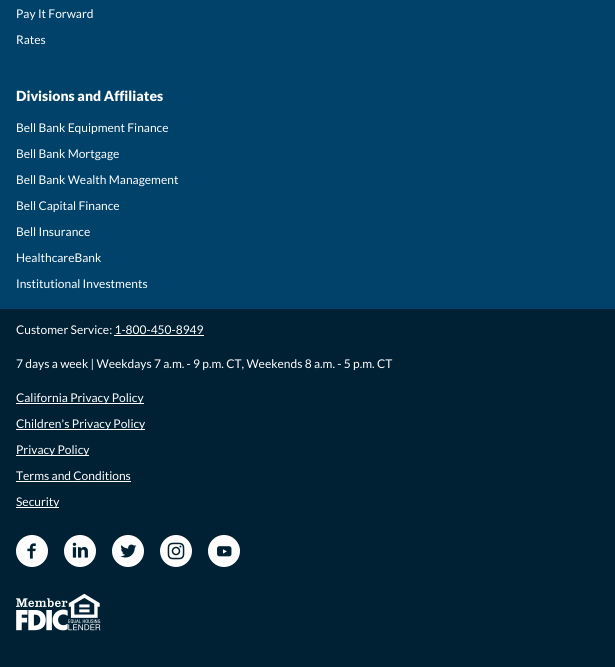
#include <cairo/cairo.h>
#include <math.h>
#include <stddef.h>

typedef struct { double x, y; const char *s; } line_t;
typedef struct { double x, y, w, h; unsigned color; } box_t;
static cairo_t *cr;

static void rgb(unsigned color)
{
	cairo_set_source_rgb(cr, (color >> 16) / 255.0, (color >> 8 & 255) / 255.0, (color & 255) / 255.0);
}

static void image(const char *path, double x, double y, double w, double h)
{
	cairo_surface_t *image = cairo_image_surface_create_from_png(path);
	cairo_save(cr);
	cairo_set_source_surface(cr, image, x, y);
	cairo_rectangle(cr, x, y, w, h);
	cairo_fill(cr);
	cairo_restore(cr);
	cairo_surface_destroy(image);
}

int main(void) {
	cairo_surface_t *surface = cairo_image_surface_create(CAIRO_FORMAT_RGB24, 615, 667);
	cr = cairo_create(surface);
	cairo_font_options_t *options = cairo_font_options_create();
	cairo_font_options_set_hint_metrics(options, CAIRO_HINT_METRICS_OFF);
	cairo_font_options_set_hint_style(options, CAIRO_HINT_STYLE_NONE);
	cairo_set_font_options(cr, options);
	cairo_set_miter_limit(cr, 4);
	rgb(0x00426a);
	cairo_paint(cr);
	{
		static const box_t items[] = {
			{0, 309, 615, 358, 0x002034},
			{114, 335, 90, 1, 0xffffff},
			{16, 403, 128, 1, 0xffffff},
			{16, 429, 129, 1, 0xffffff},
			{16, 455, 73, 1, 0xffffff},
			{16, 481, 115, 1, 0xffffff},
			{16, 507, 43, 1, 0xffffff},
		};
		for (size_t i = 0; i < sizeof items / sizeof *items; i++) {
			rgb(items[i].color);
			cairo_rectangle(cr, items[i].x, items[i].y, items[i].w, items[i].h);
			cairo_fill(cr);
		}
	}
	image("img/1.png", 16, 535, 32, 32);
	image("img/2.png", 64, 535, 32, 32);
	image("img/3.png", 112, 535, 32, 32);
	image("img/4.png", 160, 535, 32, 32);
	image("img/5.png", 208, 535, 32, 32);
	image("img/6.png", 16, 598, 52, 33);
	image("img/7.png", 68, 593, 33, 38);
	cairo_select_font_face(cr, "Lato", CAIRO_FONT_SLANT_NORMAL, CAIRO_FONT_WEIGHT_NORMAL);
	cairo_set_font_size(cr, 12);
	cairo_move_to(cr, 16, 18);
	cairo_show_text(cr, "Pay It Forward");
	cairo_move_to(cr, 16, 44);
	cairo_show_text(cr, "Rates");
	cairo_select_font_face(cr, "Lato Black", CAIRO_FONT_SLANT_NORMAL, CAIRO_FONT_WEIGHT_NORMAL);
	cairo_set_font_size(cr, 14);
	cairo_move_to(cr, 16, 101);
	cairo_show_text(cr, "Divisions and Affiliates");
	cairo_select_font_face(cr, "Lato", CAIRO_FONT_SLANT_NORMAL, CAIRO_FONT_WEIGHT_NORMAL);
	cairo_set_font_size(cr, 12);
	{
		static const line_t items[] = {
			{16, 132, "Bell Bank Equipment Finance"},
			{16, 158, "Bell Bank Mortgage"},
			{16, 184, "Bell Bank Wealth Management"},
			{16, 210, "Bell Capital Finance"},
			{16, 236, "Bell Insurance"},
			{16, 262, "HealthcareBank"},
			{16, 288, "Institutional Investments"},
			{16, 334, "Customer Service: 1-800-450-8949"},
			{16, 368, "7 days a week | Weekdays 7 a.m. - 9 p.m. CT, Weekends 8 a.m. - 5 p.m. CT"},
			{16, 402, "California Privacy Policy"},
			{16, 428, "Children's Privacy Policy"},
			{16, 454, "Privacy Policy"},
			{16, 480, "Terms and Conditions"},
			{16, 506, "Security"},
		};
		for (size_t i = 0; i < sizeof items / sizeof *items; i++) {
			cairo_move_to(cr, items[i].x, items[i].y);
			cairo_show_text(cr, items[i].s);
		}
	}
	cairo_surface_write_to_png(surface, "page.png");
	cairo_font_options_destroy(options);
	cairo_destroy(cr);
	cairo_surface_destroy(surface);
	return 0;
}
